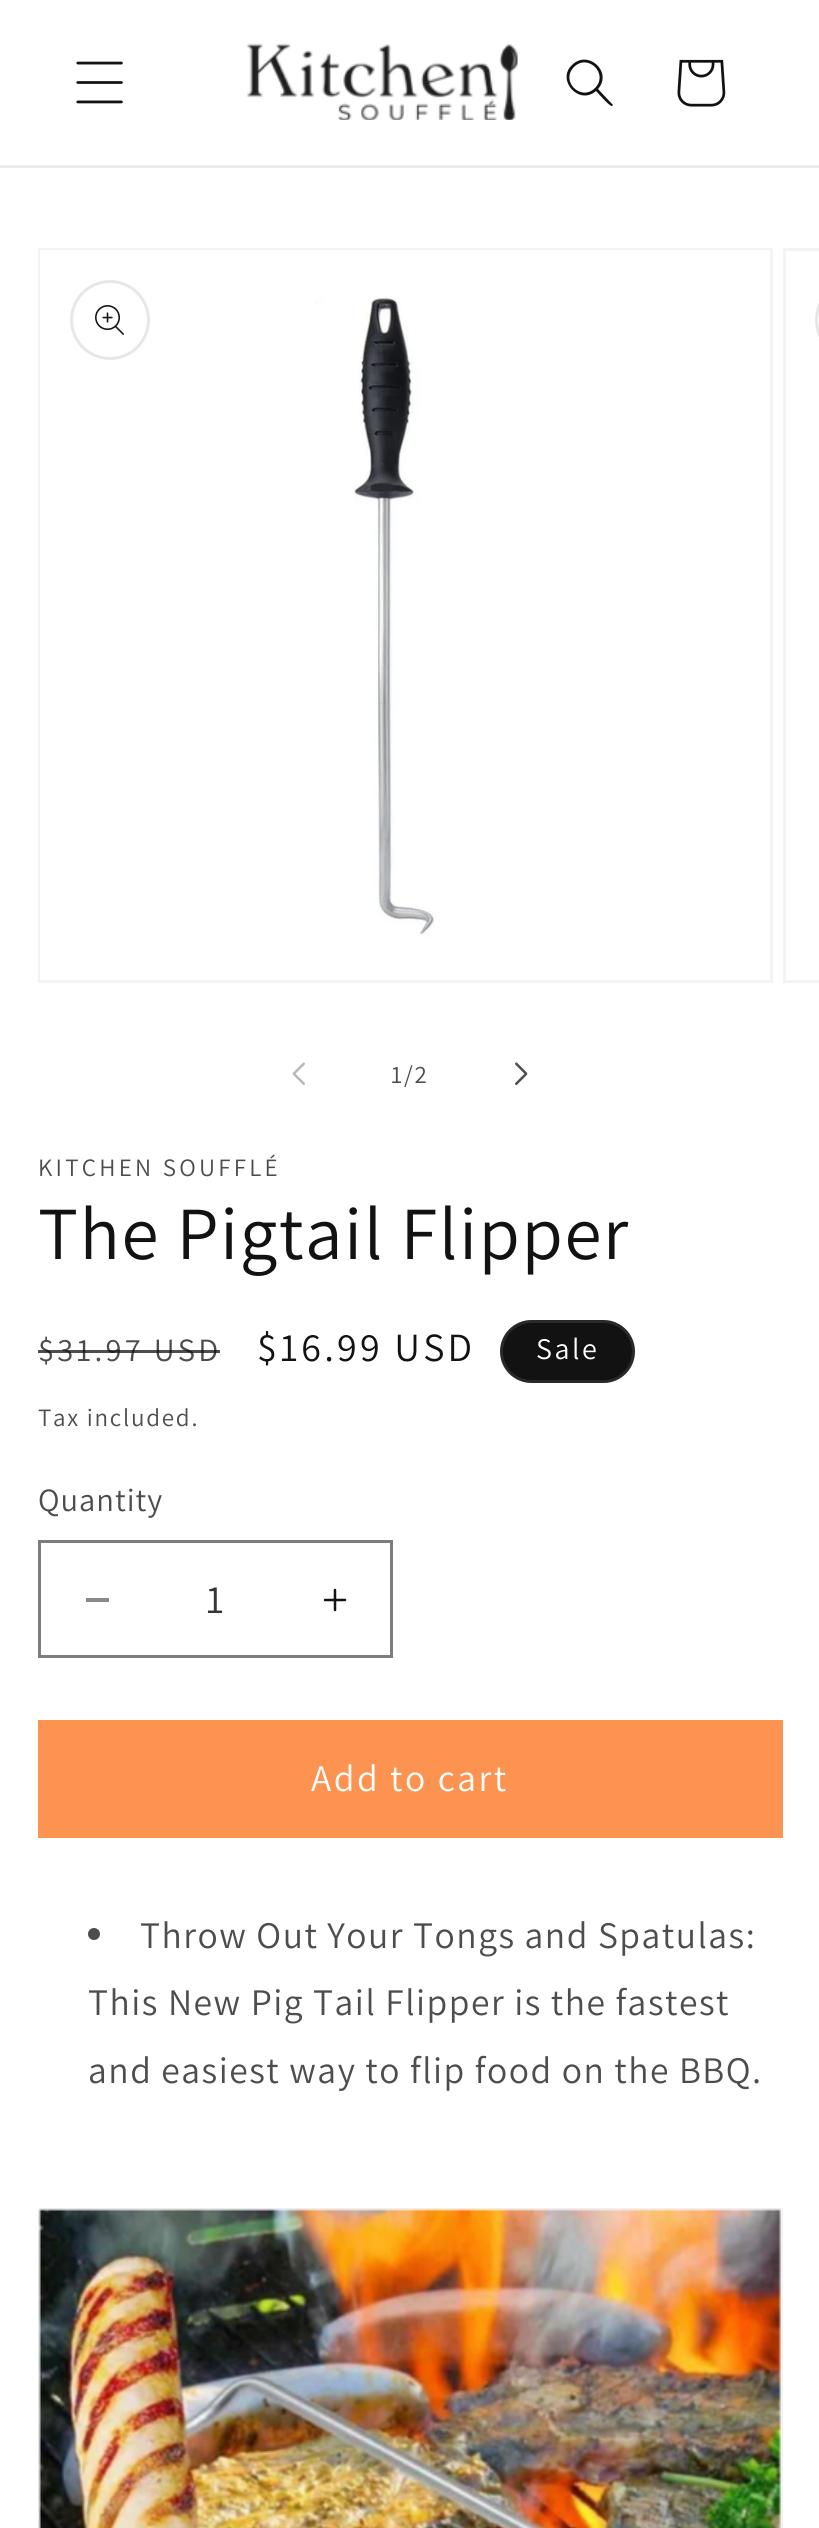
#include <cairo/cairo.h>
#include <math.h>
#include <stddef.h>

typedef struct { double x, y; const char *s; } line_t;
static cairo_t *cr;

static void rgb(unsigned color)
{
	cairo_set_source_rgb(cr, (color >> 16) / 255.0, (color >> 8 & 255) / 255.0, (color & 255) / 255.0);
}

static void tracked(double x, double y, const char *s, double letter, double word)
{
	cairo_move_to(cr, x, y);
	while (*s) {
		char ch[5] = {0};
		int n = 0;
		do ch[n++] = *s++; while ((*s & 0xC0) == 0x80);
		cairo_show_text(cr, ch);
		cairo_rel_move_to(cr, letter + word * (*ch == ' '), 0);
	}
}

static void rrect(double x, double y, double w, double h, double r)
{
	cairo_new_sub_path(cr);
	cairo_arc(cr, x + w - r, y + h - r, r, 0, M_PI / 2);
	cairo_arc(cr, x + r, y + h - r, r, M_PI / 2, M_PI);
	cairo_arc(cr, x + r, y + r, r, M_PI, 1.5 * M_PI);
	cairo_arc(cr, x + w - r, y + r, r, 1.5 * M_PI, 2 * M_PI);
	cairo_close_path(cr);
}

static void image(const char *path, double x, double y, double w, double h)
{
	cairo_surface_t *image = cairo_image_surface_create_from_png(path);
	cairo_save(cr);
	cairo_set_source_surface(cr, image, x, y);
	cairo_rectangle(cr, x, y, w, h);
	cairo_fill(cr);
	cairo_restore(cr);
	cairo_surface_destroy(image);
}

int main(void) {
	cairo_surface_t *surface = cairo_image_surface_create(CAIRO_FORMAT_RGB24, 819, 2528);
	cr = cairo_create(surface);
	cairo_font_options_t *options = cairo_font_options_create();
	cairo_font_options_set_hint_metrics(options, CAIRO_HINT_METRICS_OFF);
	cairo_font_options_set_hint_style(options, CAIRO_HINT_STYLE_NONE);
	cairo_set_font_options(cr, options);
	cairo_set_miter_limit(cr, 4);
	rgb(0xffffff);
	cairo_paint(cr);
	rgb(0xececec);
	cairo_rectangle(cr, 0, 165, 819, 3);
	cairo_fill(cr);
	image("img/1.png", 76, 61, 47, 43);
	image("img/2.png", 246, 43, 272, 77);
	rgb(0x121212);
	cairo_set_fill_rule(cr, CAIRO_FILL_RULE_EVEN_ODD);
	cairo_new_path(cr);
	cairo_move_to(cr, 595, 88);
	cairo_curve_to(cr, 581, 102, 560, 81, 574, 67);
	cairo_curve_to(cr, 588, 53, 609, 74, 595, 88);
	cairo_close_path(cr);
	cairo_move_to(cr, 596, 91);
	cairo_curve_to(cr, 579, 106, 556, 80, 572, 65);
	cairo_curve_to(cr, 588, 49, 613, 72, 598, 89);
	cairo_line_to(cr, 613, 105);
	cairo_line_to(cr, 612, 106);
	cairo_curve_to(cr, 610, 107, 598, 93, 596, 91);
	cairo_close_path(cr);
	cairo_fill(cr);
	image("img/3.png", 677, 59, 49, 48);
	cairo_rectangle(cr, 39.5, 249.5, 732, 732);
	rgb(0xf3f3f3);
	cairo_set_line_width(cr, 3);
	cairo_stroke(cr);
	image("img/4.png", 40, 250, 730, 730);
	cairo_arc(cr, 110, 320, 38.5, 0, 2 * M_PI);
	rgb(0xe7e7e7);
	cairo_stroke(cr);
	image("img/5.png", 95, 305, 29, 30);
	cairo_rectangle(cr, 784.5, 249.5, 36, 732);
	rgb(0xf3f3f3);
	cairo_stroke(cr);
	rrect(816.5, 281.5, 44, 77, 38.5);
	rgb(0xe7e7e7);
	cairo_stroke(cr);
	image("img/6.png", 292, 1062, 13, 23);
	image("img/7.png", 515, 1062, 13, 23);
	rgb(0x121212);
	rrect(500, 1320, 135, 63, 31.5);
	cairo_fill(cr);
	rrect(501.5, 1321.5, 132, 60, 30);
	cairo_set_source_rgba(cr, 1, 1, 1, 0.1);
	cairo_stroke(cr);
	rgb(0x898989);
	cairo_rectangle(cr, 86, 1598, 23, 4);
	cairo_fill(cr);
	image("img/8.png", 323, 1588, 24, 24);
	cairo_rectangle(cr, 39.5, 1541.5, 352, 115);
	rgb(0x7d7d7d);
	cairo_stroke(cr);
	rgb(0xfd9350);
	cairo_rectangle(cr, 38, 1720, 745, 118);
	cairo_fill(cr);
	rgb(0x4d4d4d);
	cairo_arc(cr, 94, 1934, 6, 0, 2 * M_PI);
	cairo_fill(cr);
	cairo_rectangle(cr, 39.5, 2209.5, 742, 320);
	rgb(0xf3f3f3);
	cairo_stroke(cr);
	image("img/9.png", 38, 2208, 743, 320);
	cairo_select_font_face(cr, "Assistant", CAIRO_FONT_SLANT_NORMAL, CAIRO_FONT_WEIGHT_NORMAL);
	cairo_set_font_size(cr, 25);
	rgb(0x4d4d4d);
	tracked(391, 1083, "1/2", 1.75, 0);
	tracked(38, 1176, "KITCHEN SOUFFLÉ", 3.25, 0);
	cairo_set_font_size(cr, 75);
	rgb(0x121212);
	tracked(38, 1259, "The Pigtail Flipper", 1.5, 0);
	cairo_set_font_size(cr, 32.5);
	rgb(0x4d4d4d);
	tracked(38, 1361, "$31.97 USD", 3.25, 0);
	cairo_set_source_rgba(cr, 0.071, 0.071, 0.071, 0.75);
	cairo_rectangle(cr, 38, 1350, 182, 3);
	cairo_fill(cr);
	cairo_set_font_size(cr, 40);
	rgb(0x121212);
	tracked(257, 1361, "$16.99 USD", 3.25, 0);
	cairo_set_font_size(cr, 30);
	rgb(0xffffff);
	tracked(536, 1359, "Sale", 2.5, 0);
	cairo_set_font_size(cr, 25);
	rgb(0x4d4d4d);
	tracked(38, 1426, "Tax included.", 1.75, 0);
	cairo_set_font_size(cr, 32.5);
	tracked(38, 1511, "Quantity", 1, 0);
	cairo_set_font_size(cr, 40);
	rgb(0x363636);
	cairo_move_to(cr, 206, 1613);
	cairo_show_text(cr, "1");
	cairo_set_font_size(cr, 37.5);
	rgb(0xffffff);
	tracked(311, 1791, "Add to cart", 2.5, 0);
	rgb(0x4d4d4d);
	{
		static const line_t items[] = {
			{140, 1948, "Throw Out Your Tongs and Spatulas:"},
			{88, 2015, "This New Pig Tail Flipper is the fastest"},
			{88, 2083, "and easiest way to flip food on the BBQ."},
		};
		for (size_t i = 0; i < sizeof items / sizeof *items; i++) {
			tracked(items[i].x, items[i].y, items[i].s, 1.5, 0);
		}
	}
	cairo_surface_write_to_png(surface, "page.png");
	cairo_font_options_destroy(options);
	cairo_destroy(cr);
	cairo_surface_destroy(surface);
	return 0;
}
